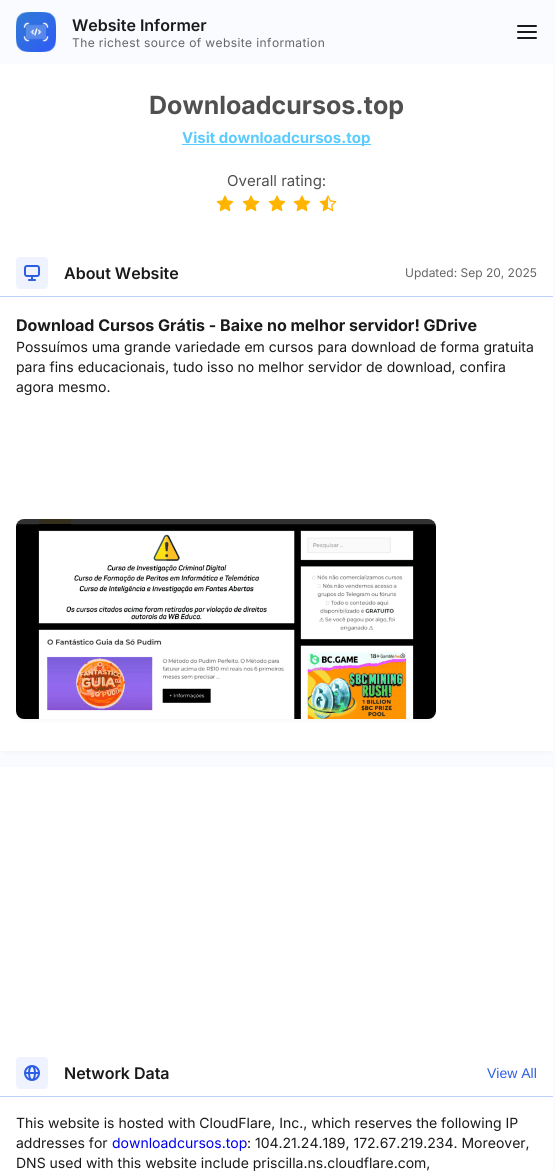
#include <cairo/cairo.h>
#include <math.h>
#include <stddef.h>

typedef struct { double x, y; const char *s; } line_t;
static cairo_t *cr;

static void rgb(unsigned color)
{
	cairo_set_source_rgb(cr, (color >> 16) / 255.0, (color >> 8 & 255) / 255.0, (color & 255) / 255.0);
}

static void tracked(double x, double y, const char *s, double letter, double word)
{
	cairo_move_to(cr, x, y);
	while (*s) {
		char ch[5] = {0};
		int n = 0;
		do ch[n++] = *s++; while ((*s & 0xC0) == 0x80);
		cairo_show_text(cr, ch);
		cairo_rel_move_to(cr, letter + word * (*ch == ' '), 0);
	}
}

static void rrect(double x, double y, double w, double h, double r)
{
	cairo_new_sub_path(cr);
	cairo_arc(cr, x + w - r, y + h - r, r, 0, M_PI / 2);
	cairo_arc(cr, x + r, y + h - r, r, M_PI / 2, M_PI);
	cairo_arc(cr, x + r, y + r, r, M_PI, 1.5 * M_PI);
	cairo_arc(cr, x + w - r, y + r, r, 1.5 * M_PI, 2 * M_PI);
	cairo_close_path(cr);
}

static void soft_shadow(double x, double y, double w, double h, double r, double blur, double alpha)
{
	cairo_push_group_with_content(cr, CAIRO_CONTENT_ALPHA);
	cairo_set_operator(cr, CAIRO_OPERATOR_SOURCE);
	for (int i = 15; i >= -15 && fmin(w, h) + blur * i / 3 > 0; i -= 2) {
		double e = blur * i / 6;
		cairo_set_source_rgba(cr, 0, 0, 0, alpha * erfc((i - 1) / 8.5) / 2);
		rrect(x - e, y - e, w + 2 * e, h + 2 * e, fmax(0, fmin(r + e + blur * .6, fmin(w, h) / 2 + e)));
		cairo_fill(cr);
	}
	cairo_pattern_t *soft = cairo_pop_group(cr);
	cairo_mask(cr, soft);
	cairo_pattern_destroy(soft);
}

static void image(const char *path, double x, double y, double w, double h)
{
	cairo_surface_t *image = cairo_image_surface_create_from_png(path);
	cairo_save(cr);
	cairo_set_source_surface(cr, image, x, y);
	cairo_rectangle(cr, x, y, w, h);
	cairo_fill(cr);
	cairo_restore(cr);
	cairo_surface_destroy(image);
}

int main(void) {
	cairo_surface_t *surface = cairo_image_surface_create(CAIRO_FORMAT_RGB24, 555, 1171);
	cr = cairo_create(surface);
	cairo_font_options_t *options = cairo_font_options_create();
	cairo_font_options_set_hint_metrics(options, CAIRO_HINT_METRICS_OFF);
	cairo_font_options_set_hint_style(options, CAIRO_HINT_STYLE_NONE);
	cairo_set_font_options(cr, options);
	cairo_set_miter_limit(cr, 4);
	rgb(0xf9fbff);
	cairo_paint(cr);
	image("img/1.png", 16, 12, 40, 40);
	rgb(0x1a1a1a);
	rrect(517, 25, 20, 2, 1);
	cairo_fill(cr);
	rrect(517, 31, 20, 2, 1);
	cairo_fill(cr);
	rrect(517, 37, 20, 2, 1);
	cairo_fill(cr);
	rgb(0xffffff);
	cairo_rectangle(cr, 0, 64, 553, 185);
	cairo_fill(cr);
	rgb(0x5acbff);
	cairo_rectangle(cr, 182, 144, 189, 1);
	cairo_fill(cr);
	image("img/2.png", 216, 195, 18, 17);
	image("img/2.png", 242, 195, 18, 17);
	image("img/2.png", 268, 195, 18, 17);
	image("img/2.png", 293, 195, 18, 17);
	image("img/3.png", 319, 195, 18, 17);
	rgb(0x1a1a1a);
	soft_shadow(4, 257, 545, 494, 0, 3, 0.06);
	rgb(0xffffff);
	cairo_rectangle(cr, 0, 249, 553, 502);
	cairo_fill(cr);
	rgb(0xeef3ff);
	rrect(16, 257, 32, 32, 4);
	cairo_fill(cr);
	image("img/4.png", 24, 265, 16, 16);
	rgb(0xbfd0fd);
	cairo_rectangle(cr, 0, 296, 553, 1);
	cairo_fill(cr);
	rgb(0x1a1a1a);
	soft_shadow(20, 527, 412, 192, 4, 3, 0.06);
	image("img/5.png", 16, 519, 420, 200);
	rgb(0xffffff);
	cairo_rectangle(cr, 0, 767, 553, 404);
	cairo_fill(cr);
	rgb(0xeef3ff);
	rrect(16, 1057, 32, 32, 4);
	cairo_fill(cr);
	image("img/6.png", 24, 1065, 16, 16);
	rgb(0xbfd0fd);
	cairo_rectangle(cr, 0, 1096, 553, 1);
	cairo_fill(cr);
	cairo_select_font_face(cr, "Inter SemiBold", CAIRO_FONT_SLANT_NORMAL, CAIRO_FONT_WEIGHT_NORMAL);
	cairo_set_font_size(cr, 16);
	rgb(0x1a1a1a);
	cairo_move_to(cr, 72, 31);
	cairo_show_text(cr, "Website Informer");
	cairo_select_font_face(cr, "Inter", CAIRO_FONT_SLANT_NORMAL, CAIRO_FONT_WEIGHT_NORMAL);
	cairo_set_font_size(cr, 12);
	rgb(0x656565);
	tracked(72, 47, "The richest source of website information", 0.4, 0);
	cairo_select_font_face(cr, "Inter", CAIRO_FONT_SLANT_NORMAL, CAIRO_FONT_WEIGHT_BOLD);
	cairo_set_font_size(cr, 25);
	rgb(0x505050);
	cairo_move_to(cr, 149, 114);
	cairo_show_text(cr, "Downloadcursos.top");
	cairo_set_font_size(cr, 15);
	rgb(0x5acbff);
	cairo_move_to(cr, 182, 143);
	cairo_show_text(cr, "Visit downloadcursos.top");
	cairo_select_font_face(cr, "Inter", CAIRO_FONT_SLANT_NORMAL, CAIRO_FONT_WEIGHT_NORMAL);
	rgb(0x505050);
	cairo_move_to(cr, 227, 186);
	cairo_show_text(cr, "Overall rating:");
	cairo_select_font_face(cr, "Inter SemiBold", CAIRO_FONT_SLANT_NORMAL, CAIRO_FONT_WEIGHT_NORMAL);
	cairo_set_font_size(cr, 16);
	rgb(0x1a1a1a);
	cairo_move_to(cr, 64, 279);
	cairo_show_text(cr, "About Website");
	cairo_select_font_face(cr, "Inter", CAIRO_FONT_SLANT_NORMAL, CAIRO_FONT_WEIGHT_NORMAL);
	cairo_set_font_size(cr, 12);
	rgb(0x656565);
	cairo_move_to(cr, 405, 277);
	cairo_show_text(cr, "Updated: Sep 20, 2025");
	cairo_select_font_face(cr, "Inter", CAIRO_FONT_SLANT_NORMAL, CAIRO_FONT_WEIGHT_BOLD);
	cairo_set_font_size(cr, 16);
	rgb(0x1a1a1a);
	cairo_move_to(cr, 16, 331);
	cairo_show_text(cr, "Download Cursos Grátis - Baixe no melhor servidor! GDrive");
	cairo_select_font_face(cr, "Inter", CAIRO_FONT_SLANT_NORMAL, CAIRO_FONT_WEIGHT_NORMAL);
	cairo_set_font_size(cr, 14);
	{
		static const line_t items[] = {
			{16, 352, "Possuímos uma grande variedade em cursos para download de forma gratuita"},
			{16, 372, "para fins educacionais, tudo isso no melhor servidor de download, confira"},
			{16, 392, "agora mesmo."},
		};
		for (size_t i = 0; i < sizeof items / sizeof *items; i++) {
			cairo_move_to(cr, items[i].x, items[i].y);
			cairo_show_text(cr, items[i].s);
		}
	}
	cairo_select_font_face(cr, "Inter SemiBold", CAIRO_FONT_SLANT_NORMAL, CAIRO_FONT_WEIGHT_NORMAL);
	cairo_set_font_size(cr, 16);
	cairo_move_to(cr, 64, 1079);
	cairo_show_text(cr, "Network Data");
	cairo_select_font_face(cr, "Liberation Sans", CAIRO_FONT_SLANT_NORMAL, CAIRO_FONT_WEIGHT_NORMAL);
	cairo_set_font_size(cr, 14);
	rgb(0x2c5de5);
	cairo_move_to(cr, 487, 1078);
	cairo_show_text(cr, "View All");
	cairo_select_font_face(cr, "Inter", CAIRO_FONT_SLANT_NORMAL, CAIRO_FONT_WEIGHT_NORMAL);
	rgb(0x1a1a1a);
	cairo_move_to(cr, 16, 1128);
	cairo_show_text(cr, "This website is hosted with CloudFlare, Inc., which reserves the following IP");
	cairo_move_to(cr, 16, 1148);
	cairo_show_text(cr, "addresses for");
	rgb(0x0000ee);
	cairo_move_to(cr, 112, 1148);
	cairo_show_text(cr, "downloadcursos.top");
	rgb(0x1a1a1a);
	cairo_move_to(cr, 247, 1148);
	cairo_show_text(cr, ": 104.21.24.189, 172.67.219.234. Moreover,");
	cairo_move_to(cr, 16, 1168);
	cairo_show_text(cr, "DNS used with this website include priscilla.ns.cloudflare.com,");
	cairo_surface_write_to_png(surface, "page.png");
	cairo_font_options_destroy(options);
	cairo_destroy(cr);
	cairo_surface_destroy(surface);
	return 0;
}
